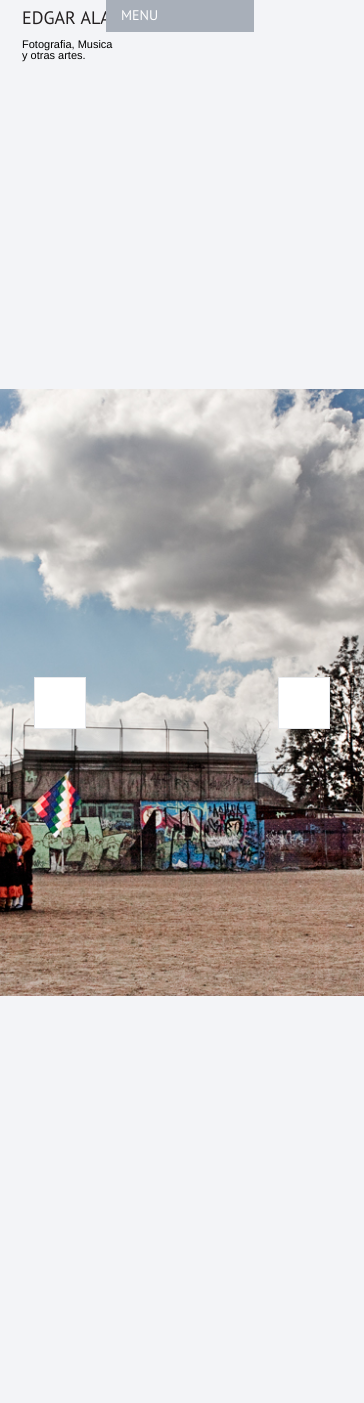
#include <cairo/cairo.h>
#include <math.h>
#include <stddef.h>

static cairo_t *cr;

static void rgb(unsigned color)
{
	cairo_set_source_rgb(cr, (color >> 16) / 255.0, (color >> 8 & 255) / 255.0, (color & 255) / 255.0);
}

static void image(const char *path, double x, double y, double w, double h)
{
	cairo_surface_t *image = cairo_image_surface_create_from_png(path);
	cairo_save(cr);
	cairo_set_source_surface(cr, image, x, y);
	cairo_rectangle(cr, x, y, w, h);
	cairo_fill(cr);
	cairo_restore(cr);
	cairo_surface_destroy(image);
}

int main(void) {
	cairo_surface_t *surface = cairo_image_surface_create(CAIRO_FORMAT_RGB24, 364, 1403);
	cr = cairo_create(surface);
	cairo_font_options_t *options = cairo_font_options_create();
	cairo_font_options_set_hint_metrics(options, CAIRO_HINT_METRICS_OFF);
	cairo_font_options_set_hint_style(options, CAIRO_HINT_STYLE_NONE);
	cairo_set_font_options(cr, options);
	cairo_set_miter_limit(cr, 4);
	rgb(0xf3f4f7);
	cairo_paint(cr);
	image("img/1.png", 0, 389, 364, 607);
	rgb(0xffffff);
	cairo_rectangle(cr, 34.5, 677.5, 51, 51);
	cairo_fill_preserve(cr);
	rgb(0xe6e8eb);
	cairo_set_line_width(cr, 1);
	cairo_stroke(cr);
	rgb(0xffffff);
	cairo_rectangle(cr, 278.5, 677.5, 51, 51);
	cairo_fill_preserve(cr);
	rgb(0xe6e8eb);
	cairo_stroke(cr);
	cairo_select_font_face(cr, "PT Sans", CAIRO_FONT_SLANT_NORMAL, CAIRO_FONT_WEIGHT_NORMAL);
	cairo_set_font_size(cr, 18);
	rgb(0x231f20);
	cairo_move_to(cr, 22, 24);
	cairo_show_text(cr, "EDGAR ALA");
	cairo_select_font_face(cr, "Liberation Sans", CAIRO_FONT_SLANT_NORMAL, CAIRO_FONT_WEIGHT_NORMAL);
	cairo_set_font_size(cr, 11);
	rgb(0x000000);
	cairo_move_to(cr, 22, 48);
	cairo_show_text(cr, "Fotografia, Musica");
	cairo_move_to(cr, 22, 59);
	cairo_show_text(cr, "y otras artes.");
	rgb(0xa8afb9);
	cairo_rectangle(cr, 106, 0, 148, 32);
	cairo_fill(cr);
	cairo_select_font_face(cr, "PT Sans", CAIRO_FONT_SLANT_NORMAL, CAIRO_FONT_WEIGHT_NORMAL);
	cairo_set_font_size(cr, 14);
	rgb(0xffffff);
	cairo_move_to(cr, 121, 20);
	cairo_show_text(cr, "MENU");
	cairo_surface_write_to_png(surface, "page.png");
	cairo_font_options_destroy(options);
	cairo_destroy(cr);
	cairo_surface_destroy(surface);
	return 0;
}
